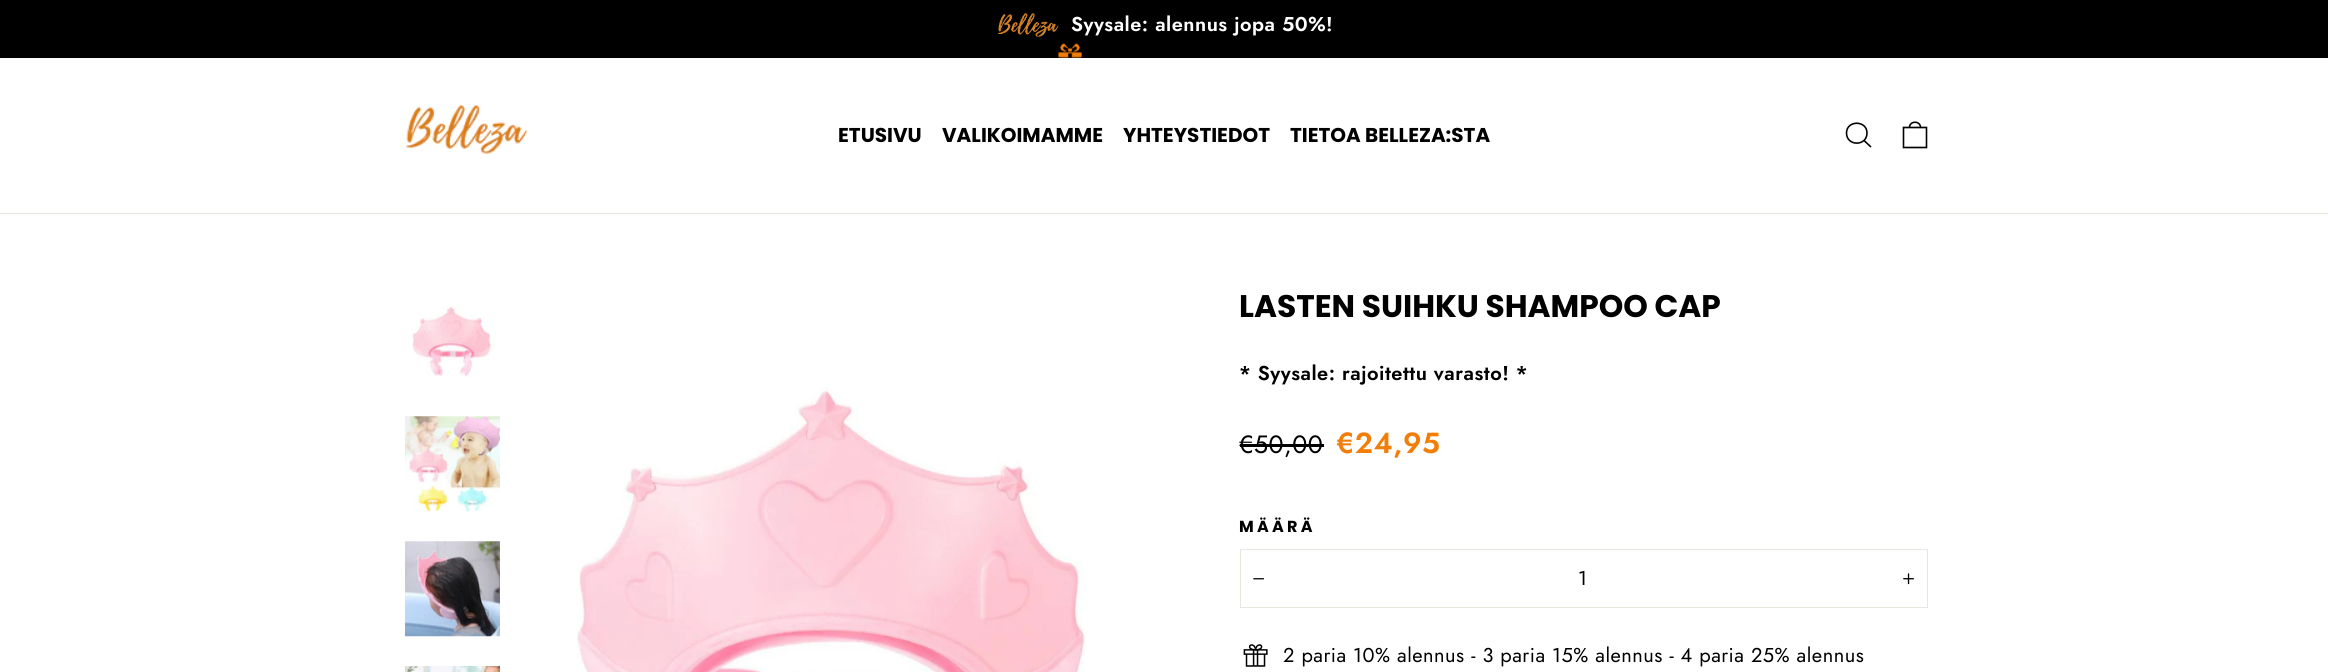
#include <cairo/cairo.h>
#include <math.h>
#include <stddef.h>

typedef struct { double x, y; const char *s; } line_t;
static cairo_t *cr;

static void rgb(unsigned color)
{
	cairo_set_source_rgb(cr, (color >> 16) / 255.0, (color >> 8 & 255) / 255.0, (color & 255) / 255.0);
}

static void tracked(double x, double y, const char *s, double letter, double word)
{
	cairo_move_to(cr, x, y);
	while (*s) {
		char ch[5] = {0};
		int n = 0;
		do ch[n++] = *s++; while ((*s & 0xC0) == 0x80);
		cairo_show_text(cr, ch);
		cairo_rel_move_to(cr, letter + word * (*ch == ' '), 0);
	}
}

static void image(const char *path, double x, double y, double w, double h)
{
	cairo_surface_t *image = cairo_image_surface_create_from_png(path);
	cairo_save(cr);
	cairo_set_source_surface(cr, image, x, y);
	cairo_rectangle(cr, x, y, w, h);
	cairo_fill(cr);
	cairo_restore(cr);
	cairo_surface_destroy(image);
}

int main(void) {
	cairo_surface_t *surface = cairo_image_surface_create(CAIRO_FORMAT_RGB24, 2328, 672);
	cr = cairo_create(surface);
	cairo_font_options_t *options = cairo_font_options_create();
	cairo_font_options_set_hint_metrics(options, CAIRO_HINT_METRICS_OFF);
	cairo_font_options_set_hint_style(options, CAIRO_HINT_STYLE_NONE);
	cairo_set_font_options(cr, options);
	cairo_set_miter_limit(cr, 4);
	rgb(0xffffff);
	cairo_paint(cr);
	rgb(0x000000);
	cairo_rectangle(cr, 0, 0, 2328, 58);
	cairo_fill(cr);
	image("img/1.png", 997, 13, 62, 24);
	image("img/2.png", 1058, 43, 24, 15);
	rgb(0xe8e8e1);
	cairo_rectangle(cr, 0, 213, 2328, 1);
	cairo_fill(cr);
	image("img/3.png", 406, 104, 122, 50);
	cairo_new_path(cr);
	cairo_move_to(cr, 1867, 133);
	cairo_curve_to(cr, 1867, 146.5, 1846.5, 146.5, 1846.5, 133);
	cairo_curve_to(cr, 1846.5, 120, 1867, 120, 1867, 133);
	cairo_close_path(cr);
	cairo_move_to(cr, 1871, 147);
	cairo_line_to(cr, 1864, 140.5);
	rgb(0x000000);
	cairo_set_line_width(cr, 1.6);
	cairo_stroke(cr);
	cairo_new_path(cr);
	cairo_move_to(cr, 1903.5, 127.5);
	cairo_line_to(cr, 1926.5, 127.5);
	cairo_line_to(cr, 1926.5, 147.5);
	cairo_line_to(cr, 1903.5, 147.5);
	cairo_close_path(cr);
	cairo_move_to(cr, 1909.5, 127.5);
	cairo_curve_to(cr, 1909.5, 120.5, 1920.5, 120.5, 1920.5, 127.5);
	cairo_stroke(cr);
	image("img/4.png", 412, 306, 84, 71);
	image("img/5.png", 405, 416, 95, 96);
	image("img/6.png", 405, 541, 95, 96);
	image("img/7.png", 405, 666, 95, 6);
	image("img/8.png", 577, 385, 508, 287);
	cairo_rectangle(cr, 1240, 444, 84, 3);
	cairo_fill(cr);
	cairo_rectangle(cr, 1240.5, 549.5, 687, 58);
	rgb(0xe8e8e1);
	cairo_set_line_width(cr, 1);
	cairo_stroke(cr);
	image("img/9.png", 1253, 578, 12, 2);
	image("img/10.png", 1903, 573, 11, 12);
	image("img/11.png", 1243, 644, 25, 23);
	cairo_select_font_face(cr, "Jost SemiBold", CAIRO_FONT_SLANT_NORMAL, CAIRO_FONT_WEIGHT_NORMAL);
	cairo_set_font_size(cr, 20);
	rgb(0xffffff);
	tracked(1071, 31, "Syysale: alennus jopa 50%!", 0.5, 0);
	cairo_select_font_face(cr, "Poppins", CAIRO_FONT_SLANT_NORMAL, CAIRO_FONT_WEIGHT_BOLD);
	rgb(0x000000);
	{
		static const line_t items[] = {
			{838, 142, "ETUSIVU"},
			{942, 142, "VALIKOIMAMME"},
			{1123, 142, "YHTEYSTIEDOT"},
			{1290, 142, "TIETOA BELLEZA:STA"},
		};
		for (size_t i = 0; i < sizeof items / sizeof *items; i++) {
			cairo_move_to(cr, items[i].x, items[i].y);
			cairo_show_text(cr, items[i].s);
		}
	}
	cairo_set_font_size(cr, 31.25);
	cairo_move_to(cr, 1239, 317);
	cairo_show_text(cr, "LASTEN SUIHKU SHAMPOO CAP");
	cairo_select_font_face(cr, "Jost SemiBold", CAIRO_FONT_SLANT_NORMAL, CAIRO_FONT_WEIGHT_NORMAL);
	cairo_set_font_size(cr, 20);
	tracked(1239, 380, "* Syysale: rajoitettu varasto! *", 0.5, 0);
	cairo_select_font_face(cr, "Jost", CAIRO_FONT_SLANT_NORMAL, CAIRO_FONT_WEIGHT_NORMAL);
	cairo_set_font_size(cr, 25);
	tracked(1239, 453, "€50,00", 0.5, 0);
	cairo_select_font_face(cr, "Jost SemiBold", CAIRO_FONT_SLANT_NORMAL, CAIRO_FONT_WEIGHT_NORMAL);
	cairo_set_font_size(cr, 29);
	rgb(0xf27e07);
	tracked(1336, 453, "€24,95", 0.5, 0);
	cairo_select_font_face(cr, "Poppins", CAIRO_FONT_SLANT_NORMAL, CAIRO_FONT_WEIGHT_BOLD);
	cairo_set_font_size(cr, 16);
	rgb(0x000000);
	tracked(1239, 532, "MÄÄRÄ", 3.25, 0);
	cairo_select_font_face(cr, "Jost", CAIRO_FONT_SLANT_NORMAL, CAIRO_FONT_WEIGHT_NORMAL);
	cairo_set_font_size(cr, 20);
	tracked(1578, 585, "1", 0.5, 0);
	tracked(1283, 662, "2 paria 10% alennus - 3 paria 15% alennus - 4 paria 25% alennus", 0.5, 0);
	cairo_surface_write_to_png(surface, "page.png");
	cairo_font_options_destroy(options);
	cairo_destroy(cr);
	cairo_surface_destroy(surface);
	return 0;
}
